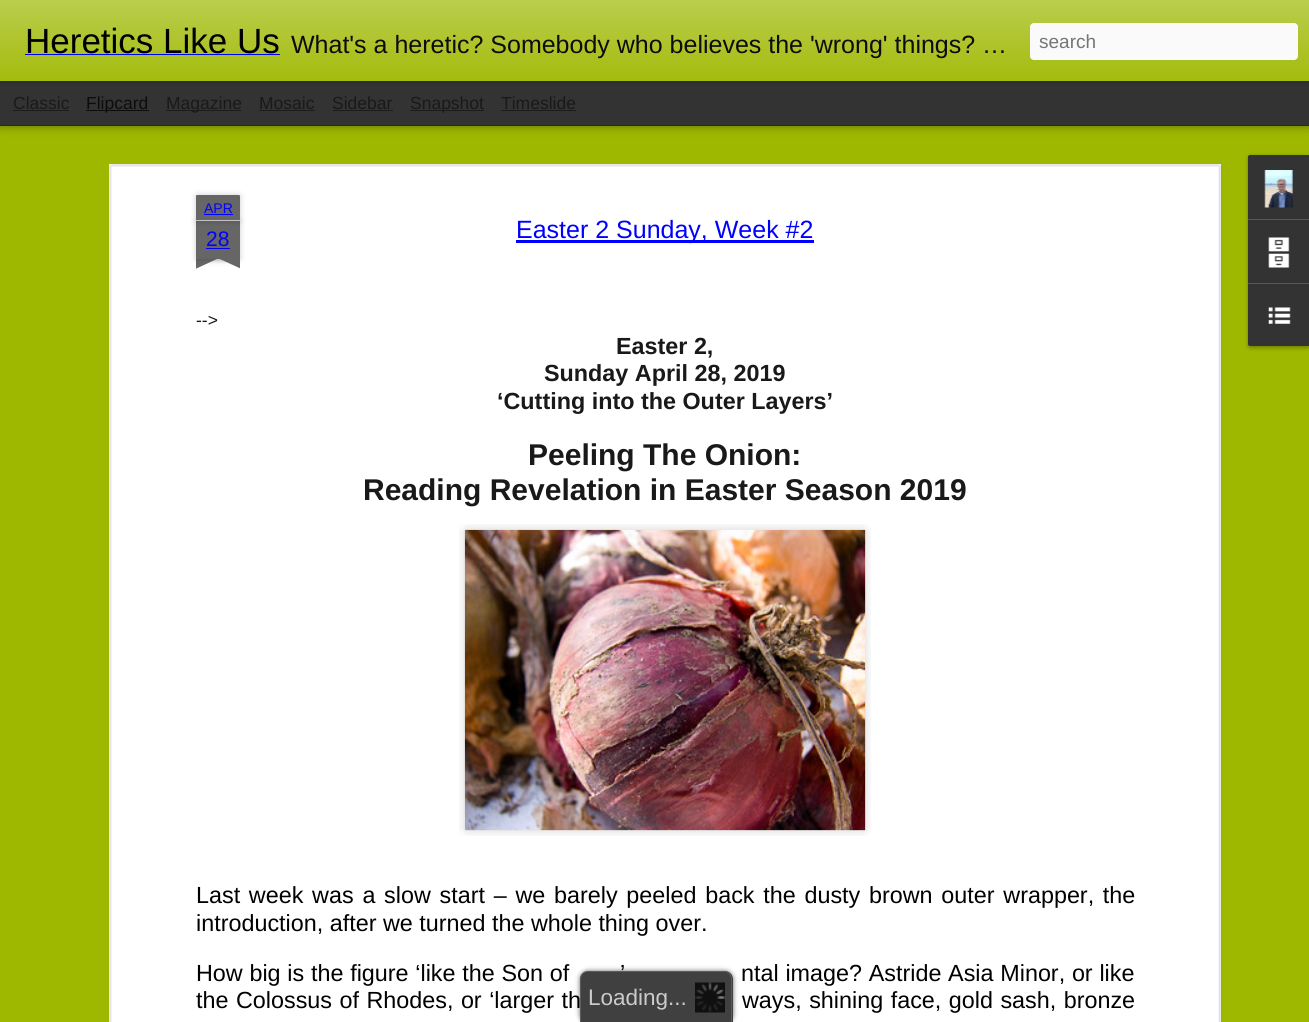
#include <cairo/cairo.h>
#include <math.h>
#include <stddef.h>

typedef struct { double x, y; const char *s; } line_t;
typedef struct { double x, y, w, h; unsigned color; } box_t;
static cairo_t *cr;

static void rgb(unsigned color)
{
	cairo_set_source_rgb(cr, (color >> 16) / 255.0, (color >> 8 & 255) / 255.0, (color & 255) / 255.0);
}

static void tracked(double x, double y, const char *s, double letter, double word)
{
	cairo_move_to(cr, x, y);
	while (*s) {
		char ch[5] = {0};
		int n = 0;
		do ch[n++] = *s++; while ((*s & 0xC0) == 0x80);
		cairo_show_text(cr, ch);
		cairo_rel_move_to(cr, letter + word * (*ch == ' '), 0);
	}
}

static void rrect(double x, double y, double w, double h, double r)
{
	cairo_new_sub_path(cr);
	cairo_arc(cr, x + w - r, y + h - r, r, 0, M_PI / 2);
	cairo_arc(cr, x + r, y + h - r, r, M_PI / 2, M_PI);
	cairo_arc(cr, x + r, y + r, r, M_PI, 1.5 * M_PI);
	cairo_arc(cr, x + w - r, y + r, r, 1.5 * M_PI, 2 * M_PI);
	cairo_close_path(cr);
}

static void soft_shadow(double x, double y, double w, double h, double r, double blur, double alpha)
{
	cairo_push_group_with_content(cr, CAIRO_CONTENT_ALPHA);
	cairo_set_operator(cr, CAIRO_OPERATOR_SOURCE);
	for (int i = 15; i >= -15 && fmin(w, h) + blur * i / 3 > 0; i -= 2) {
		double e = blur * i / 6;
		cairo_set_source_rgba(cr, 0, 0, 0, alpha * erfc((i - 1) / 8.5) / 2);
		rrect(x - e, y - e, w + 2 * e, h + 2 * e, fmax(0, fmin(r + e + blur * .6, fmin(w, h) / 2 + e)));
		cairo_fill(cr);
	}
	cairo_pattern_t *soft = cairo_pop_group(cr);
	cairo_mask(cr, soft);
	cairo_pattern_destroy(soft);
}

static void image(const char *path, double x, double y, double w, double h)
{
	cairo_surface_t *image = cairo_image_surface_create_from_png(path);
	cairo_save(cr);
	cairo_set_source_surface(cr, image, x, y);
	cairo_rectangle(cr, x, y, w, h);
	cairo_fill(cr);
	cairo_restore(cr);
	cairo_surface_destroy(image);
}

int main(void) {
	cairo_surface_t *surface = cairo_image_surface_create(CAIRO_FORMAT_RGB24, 1309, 1022);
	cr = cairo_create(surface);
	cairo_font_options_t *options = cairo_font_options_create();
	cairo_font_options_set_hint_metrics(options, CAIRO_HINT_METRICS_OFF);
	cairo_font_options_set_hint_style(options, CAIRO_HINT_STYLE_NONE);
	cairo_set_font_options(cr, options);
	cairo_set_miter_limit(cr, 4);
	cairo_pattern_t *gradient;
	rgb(0x333333);
	cairo_paint(cr);
	rgb(0x9eb800);
	cairo_rectangle(cr, 0, 126, 1309, 896);
	cairo_fill(cr);
	rgb(0x000000);
	soft_shadow(0, 81, 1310, 44, 0, 5, 0.5);
	rgb(0x333333);
	cairo_rectangle(cr, 0, 81, 1309, 44);
	cairo_fill(cr);
	rgb(0x000000);
	soft_shadow(0, 0, 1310, 81, 0, 3, 0.3);
	gradient = cairo_pattern_create_linear(0, 0, 0, 81);
	cairo_pattern_add_color_stop_rgba(gradient, 0, 0.733, 0.804, 0.302, 1);
	cairo_pattern_add_color_stop_rgba(gradient, 1, 0.639, 0.737, 0.051, 1);
	cairo_set_source(cr, gradient);
	cairo_pattern_destroy(gradient);
	cairo_rectangle(cr, 0, 0, 1309, 81);
	cairo_fill(cr);
	rgb(0x0000ff);
	cairo_rectangle(cr, 25, 54, 255, 1);
	cairo_fill(cr);
	rgb(0xfafafa);
	rrect(1030, 23, 268, 37, 4);
	cairo_fill(cr);
	{
		static const box_t items[] = {
			{13, 110, 56, 1, 0x1c1c1c},
			{86, 110, 63, 1, 0x0c0c0c},
			{166, 110, 75, 1, 0x1c1c1c},
			{259, 110, 56, 1, 0x1c1c1c},
			{333, 110, 60, 1, 0x1c1c1c},
			{410, 110, 74, 1, 0x1c1c1c},
			{501, 110, 75, 1, 0x1c1c1c},
			{109, 164, 1112, 858, 0xffffff},
		};
		for (size_t i = 0; i < sizeof items / sizeof *items; i++) {
			rgb(items[i].color);
			cairo_rectangle(cr, items[i].x, items[i].y, items[i].w, items[i].h);
			cairo_fill(cr);
		}
	}
	image("img/1.png", 109, 164, 1113, 858);
	rgb(0x000000);
	soft_shadow(196, 221, 44, 38, 0, 3, 0.2);
	rgb(0x666666);
	cairo_rectangle(cr, 196, 221, 44, 38);
	cairo_fill(cr);
	rgb(0x000000);
	soft_shadow(196, 195, 44, 26, 1, 3, 0.2);
	rgb(0x666666);
	cairo_new_path(cr);
	cairo_move_to(cr, 197, 195);
	cairo_line_to(cr, 239, 195);
	cairo_curve_to(cr, 239.5, 195, 240, 195.5, 240, 196);
	cairo_line_to(cr, 240, 221);
	cairo_line_to(cr, 196, 221);
	cairo_line_to(cr, 196, 196);
	cairo_curve_to(cr, 196, 195.5, 196.5, 195, 197, 195);
	cairo_close_path(cr);
	cairo_fill(cr);
	{
		static const box_t items[] = {
			{196, 220, 44, 1, 0xc2c2c2},
			{204, 214, 29, 1, 0x0000ff},
			{206, 248, 24, 1, 0x0000ff},
		};
		for (size_t i = 0; i < sizeof items / sizeof *items; i++) {
			rgb(items[i].color);
			cairo_rectangle(cr, items[i].x, items[i].y, items[i].w, items[i].h);
			cairo_fill(cr);
		}
	}
	cairo_save(cr);
	cairo_rectangle(cr, 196, 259, 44, 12);
	cairo_clip(cr);
	rgb(0x000000);
	soft_shadow(185, 246, 63, 13, 0, 3, 0.2);
	cairo_restore(cr);
	cairo_save(cr);
	cairo_rectangle(cr, 196, 259, 44, 12);
	cairo_clip(cr);
	rgb(0x666666);
	cairo_new_path(cr);
	cairo_move_to(cr, 185, 260);
	cairo_line_to(cr, 242, 234);
	cairo_line_to(cr, 247, 245);
	cairo_line_to(cr, 191, 271);
	cairo_close_path(cr);
	cairo_fill(cr);
	cairo_restore(cr);
	cairo_save(cr);
	cairo_rectangle(cr, 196, 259, 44, 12);
	cairo_clip(cr);
	rgb(0x000000);
	soft_shadow(189, 246, 62, 13, 0, 3, 0.2);
	cairo_restore(cr);
	cairo_save(cr);
	cairo_rectangle(cr, 196, 259, 44, 12);
	cairo_clip(cr);
	rgb(0x666666);
	cairo_new_path(cr);
	cairo_move_to(cr, 194, 234);
	cairo_line_to(cr, 251, 260);
	cairo_line_to(cr, 246, 271);
	cairo_line_to(cr, 189, 245);
	cairo_close_path(cr);
	cairo_fill(cr);
	cairo_restore(cr);
	cairo_rectangle(cr, 516, 240, 298, 3);
	cairo_fill(cr);
	image("img/2.png", 459, 524, 412, 312);
	image("img/3.png", 464, 529, 402, 302);
	rgb(0x000000);
	soft_shadow(1248, 156, 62, 192, 2.5, 2, 0.3);
	rgb(0x333333);
	cairo_new_path(cr);
	cairo_move_to(cr, 1250.5, 155);
	cairo_line_to(cr, 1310, 155);
	cairo_line_to(cr, 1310, 346);
	cairo_line_to(cr, 1250.5, 346);
	cairo_curve_to(cr, 1249, 346, 1248, 345, 1248, 343.5);
	cairo_line_to(cr, 1248, 157.5);
	cairo_curve_to(cr, 1248, 156, 1249, 155, 1250.5, 155);
	cairo_close_path(cr);
	cairo_fill(cr);
	cairo_new_path(cr);
	cairo_move_to(cr, 1250.5, 155);
	cairo_line_to(cr, 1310, 155);
	cairo_line_to(cr, 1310, 219);
	cairo_line_to(cr, 1248, 219);
	cairo_line_to(cr, 1248, 157.5);
	cairo_curve_to(cr, 1248, 156, 1249, 155, 1250.5, 155);
	cairo_close_path(cr);
	cairo_fill(cr);
	image("img/4.png", 1264, 170, 29, 38);
	rgb(0x585858);
	cairo_rectangle(cr, 1248, 219, 61, 1);
	cairo_fill(cr);
	image("img/5.png", 1268, 237, 22, 31);
	rgb(0x333333);
	cairo_new_path(cr);
	cairo_move_to(cr, 1248, 283);
	cairo_line_to(cr, 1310, 283);
	cairo_line_to(cr, 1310, 346);
	cairo_line_to(cr, 1250.5, 346);
	cairo_curve_to(cr, 1249, 346, 1248, 345, 1248, 343.5);
	cairo_close_path(cr);
	cairo_fill(cr);
	rgb(0x585858);
	cairo_rectangle(cr, 1248, 283, 61, 1);
	cairo_fill(cr);
	image("img/6.png", 1268, 307, 23, 17);
	cairo_save(cr);
	cairo_set_fill_rule(cr, CAIRO_FILL_RULE_EVEN_ODD);
	cairo_new_path(cr);
	cairo_move_to(cr, 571, 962);
	cairo_line_to(cr, 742, 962);
	cairo_line_to(cr, 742, 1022);
	cairo_line_to(cr, 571, 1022);
	cairo_close_path(cr);
	cairo_move_to(cr, 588, 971);
	cairo_line_to(cr, 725, 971);
	cairo_curve_to(cr, 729.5, 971, 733, 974.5, 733, 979);
	cairo_line_to(cr, 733, 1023);
	cairo_line_to(cr, 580, 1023);
	cairo_line_to(cr, 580, 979);
	cairo_curve_to(cr, 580, 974.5, 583.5, 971, 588, 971);
	cairo_close_path(cr);
	cairo_clip(cr);
	rgb(0x333333);
	soft_shadow(580, 971, 153, 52, 8, 2.5, 0.75);
	cairo_restore(cr);
	cairo_set_source_rgba(cr, 0, 0, 0, 0.75);
	cairo_new_path(cr);
	cairo_move_to(cr, 588, 971);
	cairo_line_to(cr, 725, 971);
	cairo_curve_to(cr, 729.5, 971, 733, 974.5, 733, 979);
	cairo_line_to(cr, 733, 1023);
	cairo_line_to(cr, 580, 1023);
	cairo_line_to(cr, 580, 979);
	cairo_curve_to(cr, 580, 974.5, 583.5, 971, 588, 971);
	cairo_close_path(cr);
	cairo_fill(cr);
	cairo_set_source_rgba(cr, 0.4, 0.4, 0.4, 0.75);
	cairo_set_fill_rule(cr, CAIRO_FILL_RULE_EVEN_ODD);
	cairo_new_path(cr);
	cairo_move_to(cr, 588, 971);
	cairo_line_to(cr, 725, 971);
	cairo_curve_to(cr, 729, 971, 732, 975, 732, 979);
	cairo_line_to(cr, 732, 1022);
	cairo_line_to(cr, 580, 1022);
	cairo_line_to(cr, 580, 979);
	cairo_curve_to(cr, 580, 975, 583, 971, 588, 971);
	cairo_close_path(cr);
	cairo_move_to(cr, 588, 972);
	cairo_line_to(cr, 725, 972);
	cairo_curve_to(cr, 728, 972, 731, 975, 731, 979);
	cairo_line_to(cr, 731, 1022);
	cairo_line_to(cr, 581, 1022);
	cairo_line_to(cr, 581, 979);
	cairo_curve_to(cr, 581, 975, 584, 972, 588, 972);
	cairo_close_path(cr);
	cairo_fill(cr);
	image("img/7.png", 695, 982, 30, 31);
	cairo_select_font_face(cr, "Liberation Sans", CAIRO_FONT_SLANT_NORMAL, CAIRO_FONT_WEIGHT_NORMAL);
	cairo_set_font_size(cr, 35);
	rgb(0x000000);
	cairo_move_to(cr, 25, 53);
	cairo_show_text(cr, "Heretics Like Us");
	cairo_set_font_size(cr, 25);
	rgb(0x0c0c0c);
	cairo_move_to(cr, 291, 53);
	cairo_show_text(cr, "What's a heretic? Somebody who believes the 'wrong' things? …");
	cairo_set_font_size(cr, 19);
	rgb(0x757575);
	cairo_move_to(cr, 1039, 48);
	cairo_show_text(cr, "search");
	cairo_set_font_size(cr, 17.5);
	rgb(0x191919);
	cairo_move_to(cr, 13, 109);
	cairo_show_text(cr, "Classic");
	rgb(0x0c0c0c);
	cairo_move_to(cr, 86, 109);
	cairo_show_text(cr, "Flipcard");
	rgb(0x191919);
	{
		static const line_t items[] = {
			{166, 109, "Magazine"},
			{259, 109, "Mosaic"},
			{332, 109, "Sidebar"},
			{410, 109, "Snapshot"},
			{501, 109, "Timeslide"},
		};
		for (size_t i = 0; i < sizeof items / sizeof *items; i++) {
			cairo_move_to(cr, items[i].x, items[i].y);
			cairo_show_text(cr, items[i].s);
		}
	}
	cairo_set_font_size(cr, 14);
	rgb(0x0000ff);
	cairo_move_to(cr, 204, 213);
	cairo_show_text(cr, "APR");
	cairo_set_font_size(cr, 21);
	cairo_move_to(cr, 206, 246);
	cairo_show_text(cr, "28");
	cairo_set_font_size(cr, 25);
	cairo_move_to(cr, 516, 238);
	cairo_show_text(cr, "Easter 2 Sunday, Week #2");
	cairo_set_font_size(cr, 17.5);
	rgb(0x191919);
	cairo_move_to(cr, 196, 326);
	cairo_show_text(cr, "-->");
	cairo_select_font_face(cr, "Liberation Sans", CAIRO_FONT_SLANT_NORMAL, CAIRO_FONT_WEIGHT_BOLD);
	cairo_set_font_size(cr, 23.35);
	{
		static const line_t items[] = {
			{616, 354, "Easter 2,"},
			{544, 381, "Sunday April 28, 2019"},
			{497, 409, "‘Cutting into the Outer Layers’"},
		};
		for (size_t i = 0; i < sizeof items / sizeof *items; i++) {
			cairo_move_to(cr, items[i].x, items[i].y);
			cairo_show_text(cr, items[i].s);
		}
	}
	cairo_set_font_size(cr, 30);
	cairo_move_to(cr, 528, 465);
	cairo_show_text(cr, "Peeling The Onion:");
	cairo_move_to(cr, 363, 500);
	cairo_show_text(cr, "Reading Revelation in Easter Season 2019");
	cairo_select_font_face(cr, "Liberation Sans", CAIRO_FONT_SLANT_NORMAL, CAIRO_FONT_WEIGHT_NORMAL);
	cairo_set_font_size(cr, 23.35);
	rgb(0x000000);
	tracked(196, 903, "Last week was a slow start – we barely peeled back the dusty brown outer wrapper, the", 0, 2.25);
	cairo_move_to(cr, 196, 931);
	cairo_show_text(cr, "introduction, after we turned the whole thing over.");
	{
		static const line_t items[] = {
			{196, 981, "How big is the figure ‘like the Son of"},
			{620, 981, "’"},
			{741, 981, "ntal image? Astride Asia Minor, or like"},
		};
		for (size_t i = 0; i < sizeof items / sizeof *items; i++) {
			tracked(items[i].x, items[i].y, items[i].s, 0, 0.25);
		}
	}
	tracked(196, 1008, "the Colossus of Rhodes, or ‘larger th", 0, 1);
	tracked(742, 1008, "ways, shining face, gold sash, bronze", 0, 1);
	cairo_set_font_size(cr, 22.5);
	rgb(0xcbcbcb);
	cairo_move_to(cr, 588, 1005);
	cairo_show_text(cr, "Loading");
	cairo_move_to(cr, 668, 1005);
	cairo_show_text(cr, "...");
	cairo_surface_write_to_png(surface, "page.png");
	cairo_font_options_destroy(options);
	cairo_destroy(cr);
	cairo_surface_destroy(surface);
	return 0;
}
